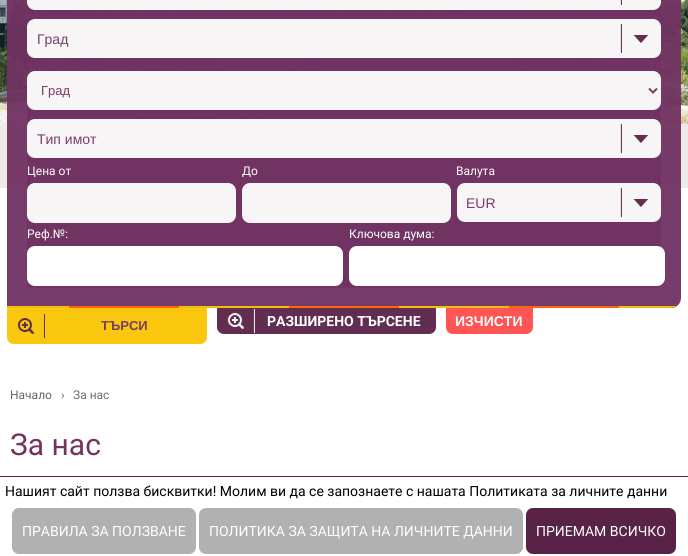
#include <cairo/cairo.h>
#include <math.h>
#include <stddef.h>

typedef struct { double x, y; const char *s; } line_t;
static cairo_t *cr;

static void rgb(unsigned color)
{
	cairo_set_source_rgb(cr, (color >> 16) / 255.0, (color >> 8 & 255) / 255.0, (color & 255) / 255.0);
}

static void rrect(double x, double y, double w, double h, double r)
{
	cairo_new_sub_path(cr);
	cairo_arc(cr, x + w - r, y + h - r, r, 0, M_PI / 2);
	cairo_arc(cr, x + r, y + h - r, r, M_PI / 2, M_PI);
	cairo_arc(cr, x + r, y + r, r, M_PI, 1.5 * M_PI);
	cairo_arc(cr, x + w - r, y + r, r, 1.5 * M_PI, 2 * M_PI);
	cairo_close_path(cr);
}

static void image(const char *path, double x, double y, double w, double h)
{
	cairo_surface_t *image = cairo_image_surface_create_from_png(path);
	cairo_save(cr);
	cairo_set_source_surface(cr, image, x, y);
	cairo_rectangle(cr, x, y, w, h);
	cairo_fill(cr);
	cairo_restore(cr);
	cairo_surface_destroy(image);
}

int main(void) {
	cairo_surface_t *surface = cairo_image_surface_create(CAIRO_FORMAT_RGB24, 688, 556);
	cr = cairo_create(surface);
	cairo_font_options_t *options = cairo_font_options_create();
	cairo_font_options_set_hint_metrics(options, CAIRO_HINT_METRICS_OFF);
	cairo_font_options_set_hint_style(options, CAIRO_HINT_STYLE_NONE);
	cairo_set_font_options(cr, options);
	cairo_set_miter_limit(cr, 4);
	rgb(0xffffff);
	cairo_paint(cr);
	rgb(0xecebe7);
	cairo_rectangle(cr, 0, 127, 688, 61);
	cairo_fill(cr);
	image("img/1.png", 0, 0, 688, 127);
	cairo_set_source_rgba(cr, 0.443, 0.2, 0.384, 0.95);
	cairo_new_path(cr);
	cairo_move_to(cr, 17, -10);
	cairo_line_to(cr, 671, -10);
	cairo_curve_to(cr, 676.5, -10, 681, -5.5, 681, 0);
	cairo_line_to(cr, 681, 298);
	cairo_curve_to(cr, 681, 303.5, 676.5, 308, 671, 308);
	cairo_line_to(cr, 7, 308);
	cairo_line_to(cr, 7, 0);
	cairo_curve_to(cr, 7, -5.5, 11.5, -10, 17, -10);
	cairo_close_path(cr);
	cairo_fill(cr);
	image("img/2.png", 7, 306, 670, 2);
	rrect(27, -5, 634, 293, 5);
	cairo_fill(cr);
	rgb(0xf8f5f7);
	rrect(27, -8, 634, 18, 8);
	cairo_fill(cr);
	image("img/3.png", 620, 0, 2, 5);
	rrect(27, 19, 634, 39, 8);
	cairo_fill(cr);
	image("img/4.png", 620, 24, 29, 29);
	rrect(27, 71, 634, 39, 8);
	cairo_fill(cr);
	cairo_new_path(cr);
	cairo_move_to(cr, 649, 88.5);
	cairo_line_to(cr, 653, 92.5);
	cairo_line_to(cr, 657, 88.5);
	rgb(0x763e68);
	cairo_stroke(cr);
	rgb(0xf8f5f7);
	rrect(27, 119, 634, 39, 8);
	cairo_fill(cr);
	image("img/4.png", 620, 124, 29, 29);
	rrect(27, 183, 209, 40, 8);
	cairo_fill(cr);
	rrect(242, 183, 209, 40, 8);
	cairo_fill(cr);
	rrect(457, 183, 204, 39, 8);
	cairo_fill(cr);
	image("img/4.png", 620, 188, 29, 29);
	rgb(0xffffff);
	rrect(27, 246, 316, 40, 8);
	cairo_fill(cr);
	rrect(349, 246, 316, 40, 8);
	cairo_fill(cr);
	rgb(0xfac70f);
	cairo_new_path(cr);
	cairo_move_to(cr, 7, 308);
	cairo_line_to(cr, 207, 308);
	cairo_line_to(cr, 207, 337);
	cairo_curve_to(cr, 207, 341, 204, 344, 200, 344);
	cairo_line_to(cr, 14, 344);
	cairo_curve_to(cr, 10, 344, 7, 341, 7, 337);
	cairo_close_path(cr);
	cairo_fill(cr);
	image("img/5.png", 17, 314, 28, 24);
	rgb(0x612e51);
	cairo_new_path(cr);
	cairo_move_to(cr, 217, 308);
	cairo_line_to(cr, 436, 308);
	cairo_line_to(cr, 436, 327);
	cairo_curve_to(cr, 436, 331, 433, 334, 429, 334);
	cairo_line_to(cr, 224, 334);
	cairo_curve_to(cr, 220, 334, 217, 331, 217, 327);
	cairo_close_path(cr);
	cairo_fill(cr);
	image("img/6.png", 227, 309, 28, 24);
	rgb(0xff5555);
	cairo_new_path(cr);
	cairo_move_to(cr, 446, 308);
	cairo_line_to(cr, 533, 308);
	cairo_line_to(cr, 533, 327);
	cairo_curve_to(cr, 533, 331, 530, 334, 526, 334);
	cairo_line_to(cr, 453, 334);
	cairo_curve_to(cr, 449, 334, 446, 331, 446, 327);
	cairo_close_path(cr);
	cairo_fill(cr);
	rgb(0x4f2342);
	cairo_rectangle(cr, 0, 476, 688, 1);
	cairo_fill(cr);
	rgb(0xb1b1b1);
	rrect(12, 508, 184, 46, 7);
	cairo_fill(cr);
	rrect(199, 508, 324, 46, 7);
	cairo_fill(cr);
	rgb(0x592348);
	rrect(526, 508, 150, 46, 7);
	cairo_fill(cr);
	cairo_select_font_face(cr, "Liberation Sans", CAIRO_FONT_SLANT_NORMAL, CAIRO_FONT_WEIGHT_NORMAL);
	cairo_set_font_size(cr, 14);
	rgb(0x783c65);
	cairo_move_to(cr, 37, 44);
	cairo_show_text(cr, "Град");
	cairo_set_font_size(cr, 13);
	cairo_move_to(cr, 41, 95);
	cairo_show_text(cr, "Град");
	cairo_set_font_size(cr, 14);
	cairo_move_to(cr, 37, 144);
	cairo_show_text(cr, "Тип имот");
	cairo_select_font_face(cr, "Roboto", CAIRO_FONT_SLANT_NORMAL, CAIRO_FONT_WEIGHT_NORMAL);
	cairo_set_font_size(cr, 12);
	rgb(0xffffff);
	{
		static const line_t items[] = {
			{27, 175, "Цена от"},
			{242, 175, "До"},
			{456, 175, "Валута"},
		};
		for (size_t i = 0; i < sizeof items / sizeof *items; i++) {
			cairo_move_to(cr, items[i].x, items[i].y);
			cairo_show_text(cr, items[i].s);
		}
	}
	cairo_select_font_face(cr, "Liberation Sans", CAIRO_FONT_SLANT_NORMAL, CAIRO_FONT_WEIGHT_NORMAL);
	cairo_set_font_size(cr, 14);
	rgb(0x783c65);
	cairo_move_to(cr, 466, 208);
	cairo_show_text(cr, "EUR");
	cairo_select_font_face(cr, "Roboto", CAIRO_FONT_SLANT_NORMAL, CAIRO_FONT_WEIGHT_NORMAL);
	cairo_set_font_size(cr, 12);
	rgb(0xffffff);
	cairo_move_to(cr, 27, 238);
	cairo_show_text(cr, "Реф.№:");
	cairo_move_to(cr, 349, 238);
	cairo_show_text(cr, "Ключова дума:");
	cairo_select_font_face(cr, "Liberation Sans", CAIRO_FONT_SLANT_NORMAL, CAIRO_FONT_WEIGHT_BOLD);
	cairo_set_font_size(cr, 13);
	rgb(0x783c65);
	cairo_move_to(cr, 101, 330);
	cairo_show_text(cr, "ТЪРСИ");
	cairo_select_font_face(cr, "Roboto", CAIRO_FONT_SLANT_NORMAL, CAIRO_FONT_WEIGHT_BOLD);
	cairo_set_font_size(cr, 14);
	rgb(0xffffff);
	cairo_move_to(cr, 267, 326);
	cairo_show_text(cr, "РАЗШИРЕНО ТЪРСЕНЕ");
	cairo_select_font_face(cr, "Liberation Sans", CAIRO_FONT_SLANT_NORMAL, CAIRO_FONT_WEIGHT_BOLD);
	cairo_move_to(cr, 455, 326);
	cairo_show_text(cr, "ИЗЧИСТИ");
	cairo_select_font_face(cr, "Roboto", CAIRO_FONT_SLANT_NORMAL, CAIRO_FONT_WEIGHT_NORMAL);
	cairo_set_font_size(cr, 12);
	rgb(0x666666);
	cairo_move_to(cr, 10, 399);
	cairo_show_text(cr, "Начало");
	rgb(0x6d6d6d);
	cairo_move_to(cr, 61, 399);
	cairo_show_text(cr, "›");
	cairo_move_to(cr, 73, 399);
	cairo_show_text(cr, "За нас");
	cairo_set_font_size(cr, 30);
	rgb(0x743260);
	cairo_move_to(cr, 10, 455);
	cairo_show_text(cr, "За нас");
	cairo_set_font_size(cr, 14);
	rgb(0x000000);
	cairo_move_to(cr, 5, 496);
	cairo_show_text(cr, "Нашият сайт ползва бисквитки! Молим ви да се запознаете с нашата Политиката за личните данни");
	rgb(0xffffff);
	{
		static const line_t items[] = {
			{22, 536, "ПРАВИЛА ЗА ПОЛЗВАНЕ"},
			{209, 536, "ПОЛИТИКА ЗА ЗАЩИТА НА ЛИЧНИТЕ ДАННИ"},
			{536, 536, "ПРИЕМАМ ВСИЧКО"},
		};
		for (size_t i = 0; i < sizeof items / sizeof *items; i++) {
			cairo_move_to(cr, items[i].x, items[i].y);
			cairo_show_text(cr, items[i].s);
		}
	}
	cairo_surface_write_to_png(surface, "page.png");
	cairo_font_options_destroy(options);
	cairo_destroy(cr);
	cairo_surface_destroy(surface);
	return 0;
}
